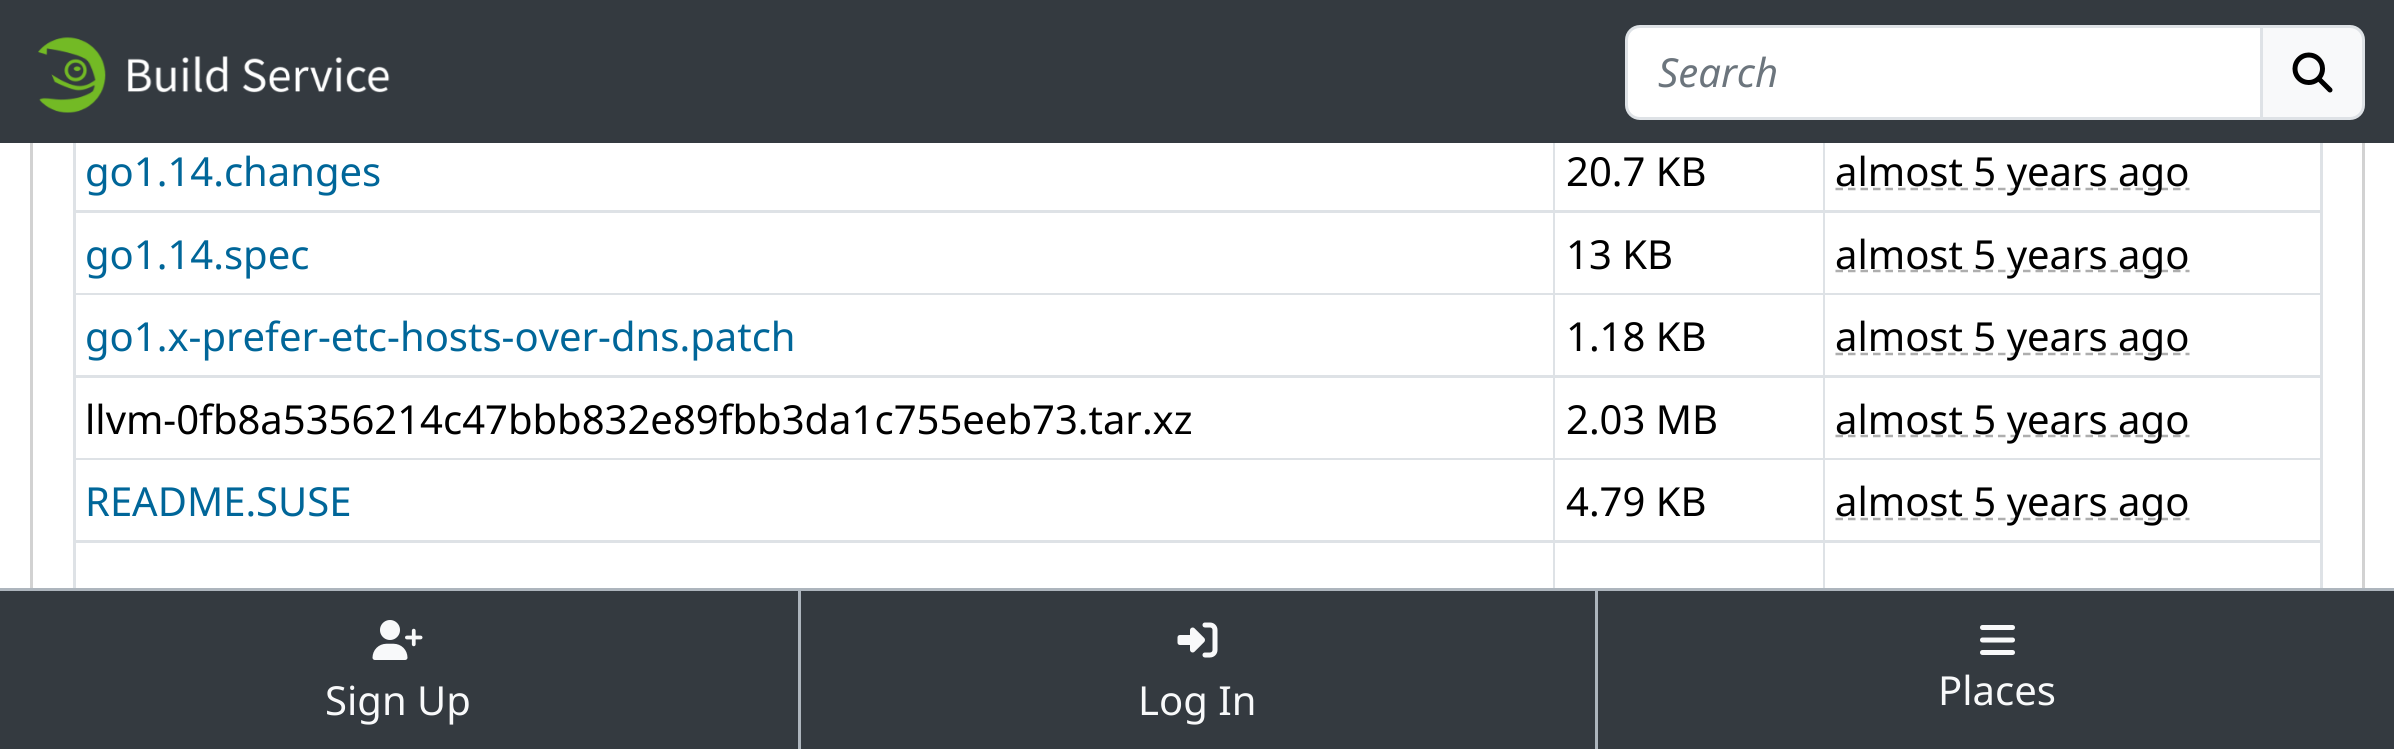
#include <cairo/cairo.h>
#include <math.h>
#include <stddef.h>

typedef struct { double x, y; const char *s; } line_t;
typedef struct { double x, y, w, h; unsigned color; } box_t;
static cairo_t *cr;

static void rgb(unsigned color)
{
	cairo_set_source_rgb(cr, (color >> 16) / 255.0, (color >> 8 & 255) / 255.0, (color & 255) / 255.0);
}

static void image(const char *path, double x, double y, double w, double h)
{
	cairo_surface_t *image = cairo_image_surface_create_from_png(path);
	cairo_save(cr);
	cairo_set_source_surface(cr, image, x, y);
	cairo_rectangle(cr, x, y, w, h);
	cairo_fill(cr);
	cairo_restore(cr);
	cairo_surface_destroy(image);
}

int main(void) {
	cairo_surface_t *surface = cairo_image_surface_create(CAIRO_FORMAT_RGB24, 2394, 749);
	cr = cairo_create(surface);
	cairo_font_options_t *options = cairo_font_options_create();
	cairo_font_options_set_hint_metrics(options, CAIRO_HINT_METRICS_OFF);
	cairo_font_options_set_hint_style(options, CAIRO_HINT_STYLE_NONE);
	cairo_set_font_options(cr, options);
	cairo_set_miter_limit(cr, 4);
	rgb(0xffffff);
	cairo_paint(cr);
	cairo_rectangle(cr, 31.5, -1.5, 2332, 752);
	rgb(0xd2d2d2);
	cairo_set_line_width(cr, 3);
	cairo_stroke(cr);
	rgb(0x343a40);
	cairo_rectangle(cr, 0, 0, 2394, 143);
	cairo_fill(cr);
	image("img/1.png", 38, 37, 352, 76);
	rgb(0xffffff);
	cairo_new_path(cr);
	cairo_move_to(cr, 1640, 26.5);
	cairo_line_to(cr, 2261.5, 26.5);
	cairo_line_to(cr, 2261.5, 118.5);
	cairo_line_to(cr, 1640, 118.5);
	cairo_curve_to(cr, 1632.5, 118.5, 1626.5, 112.5, 1626.5, 105);
	cairo_line_to(cr, 1626.5, 40);
	cairo_curve_to(cr, 1626.5, 32.5, 1632.5, 26.5, 1640, 26.5);
	cairo_close_path(cr);
	cairo_fill_preserve(cr);
	rgb(0xdee2e6);
	cairo_stroke(cr);
	rgb(0xf8f9fa);
	cairo_new_path(cr);
	cairo_move_to(cr, 2261.5, 26.5);
	cairo_line_to(cr, 2350, 26.5);
	cairo_curve_to(cr, 2357.5, 26.5, 2363.5, 32.5, 2363.5, 40);
	cairo_line_to(cr, 2363.5, 105);
	cairo_curve_to(cr, 2363.5, 112.5, 2357.5, 118.5, 2350, 118.5);
	cairo_line_to(cr, 2261.5, 118.5);
	cairo_close_path(cr);
	cairo_fill_preserve(cr);
	rgb(0xdee2e6);
	cairo_stroke(cr);
	image("img/2.png", 2292, 52, 41, 41);
	{
		static const box_t items[] = {
			{73, 210, 2250, 3, 0xdee2e6},
			{1553, 143, 3, 70, 0xdee2e6},
			{73, 143, 3, 70, 0xdee2e6},
			{1555, 143, 1, 67, 0xffffff},
			{1823, 143, 3, 70, 0xdee2e6},
			{1825, 143, 1, 67, 0xffffff},
			{2320, 143, 3, 70, 0xdee2e6},
		};
		for (size_t i = 0; i < sizeof items / sizeof *items; i++) {
			rgb(items[i].color);
			cairo_rectangle(cr, items[i].x, items[i].y, items[i].w, items[i].h);
			cairo_fill(cr);
		}
	}
	cairo_new_path(cr);
	cairo_move_to(cr, 1835.5, 189);
	cairo_line_to(cr, 2189.5, 189);
	rgb(0xaeaeae);
	cairo_set_line_width(cr, 2.5);
	cairo_set_dash(cr, (double[]){7.5, 5}, 2, 0);
	cairo_stroke(cr);
	{
		static const box_t items[] = {
			{73, 293, 2250, 2, 0xdee2e6},
			{1553, 213, 3, 82, 0xdee2e6},
			{73, 213, 3, 82, 0xdee2e6},
			{1555, 213, 1, 80, 0xffffff},
			{1823, 213, 3, 82, 0xdee2e6},
			{1825, 213, 1, 80, 0xffffff},
			{2320, 213, 3, 82, 0xdee2e6},
		};
		for (size_t i = 0; i < sizeof items / sizeof *items; i++) {
			rgb(items[i].color);
			cairo_rectangle(cr, items[i].x, items[i].y, items[i].w, items[i].h);
			cairo_fill(cr);
		}
	}
	cairo_new_path(cr);
	cairo_move_to(cr, 1835.5, 271);
	cairo_line_to(cr, 2189.5, 271);
	rgb(0xaeaeae);
	cairo_stroke(cr);
	{
		static const box_t items[] = {
			{73, 375, 2250, 3, 0xdee2e6},
			{1553, 295, 3, 83, 0xdee2e6},
			{73, 295, 3, 83, 0xdee2e6},
			{1555, 295, 1, 80, 0xffffff},
			{1823, 295, 3, 83, 0xdee2e6},
			{1825, 295, 1, 80, 0xffffff},
			{2320, 295, 3, 83, 0xdee2e6},
		};
		for (size_t i = 0; i < sizeof items / sizeof *items; i++) {
			rgb(items[i].color);
			cairo_rectangle(cr, items[i].x, items[i].y, items[i].w, items[i].h);
			cairo_fill(cr);
		}
	}
	cairo_new_path(cr);
	cairo_move_to(cr, 1835.5, 354);
	cairo_line_to(cr, 2189.5, 354);
	rgb(0xaeaeae);
	cairo_stroke(cr);
	{
		static const box_t items[] = {
			{73, 458, 2250, 2, 0xdee2e6},
			{1553, 378, 3, 82, 0xdee2e6},
			{73, 378, 3, 82, 0xdee2e6},
			{1555, 378, 1, 80, 0xffffff},
			{1823, 378, 3, 82, 0xdee2e6},
			{1825, 378, 1, 80, 0xffffff},
			{2320, 378, 3, 82, 0xdee2e6},
		};
		for (size_t i = 0; i < sizeof items / sizeof *items; i++) {
			rgb(items[i].color);
			cairo_rectangle(cr, items[i].x, items[i].y, items[i].w, items[i].h);
			cairo_fill(cr);
		}
	}
	cairo_new_path(cr);
	cairo_move_to(cr, 1835.5, 436);
	cairo_line_to(cr, 2189.5, 436);
	rgb(0xaeaeae);
	cairo_stroke(cr);
	{
		static const box_t items[] = {
			{73, 540, 2250, 3, 0xdee2e6},
			{1553, 460, 3, 83, 0xdee2e6},
			{73, 460, 3, 128, 0xdee2e6},
			{1555, 460, 1, 80, 0xffffff},
			{1823, 460, 3, 83, 0xdee2e6},
			{1825, 460, 1, 80, 0xffffff},
			{2320, 460, 3, 128, 0xdee2e6},
		};
		for (size_t i = 0; i < sizeof items / sizeof *items; i++) {
			rgb(items[i].color);
			cairo_rectangle(cr, items[i].x, items[i].y, items[i].w, items[i].h);
			cairo_fill(cr);
		}
	}
	cairo_new_path(cr);
	cairo_move_to(cr, 1835.5, 519);
	cairo_line_to(cr, 2189.5, 519);
	rgb(0xaeaeae);
	cairo_stroke(cr);
	{
		static const box_t items[] = {
			{1553, 543, 2, 45, 0xdee2e6},
			{1823, 543, 2, 45, 0xdee2e6},
			{0, 591, 2394, 158, 0x343a40},
			{0, 588, 2394, 3, 0xadb5bd},
			{798, 590, 3, 159, 0xadb5bd},
		};
		for (size_t i = 0; i < sizeof items / sizeof *items; i++) {
			rgb(items[i].color);
			cairo_rectangle(cr, items[i].x, items[i].y, items[i].w, items[i].h);
			cairo_fill(cr);
		}
	}
	image("img/3.png", 372, 620, 51, 40);
	image("img/4.png", 1177, 622, 41, 36);
	cairo_rectangle(cr, 1595, 590, 3, 159);
	cairo_fill(cr);
	image("img/5.png", 1980, 625, 35, 30);
	cairo_select_font_face(cr, "Noto Sans", CAIRO_FONT_SLANT_ITALIC, CAIRO_FONT_WEIGHT_NORMAL);
	cairo_set_font_size(cr, 40);
	rgb(0x6c757d);
	cairo_move_to(cr, 1658, 87);
	cairo_show_text(cr, "Search");
	cairo_select_font_face(cr, "Noto Sans", CAIRO_FONT_SLANT_NORMAL, CAIRO_FONT_WEIGHT_NORMAL);
	rgb(0x006699);
	cairo_move_to(cr, 85, 186);
	cairo_show_text(cr, "go1.14.changes");
	rgb(0x000000);
	cairo_move_to(cr, 1566, 186);
	cairo_show_text(cr, "20.7 KB");
	cairo_move_to(cr, 1835, 186);
	cairo_show_text(cr, "almost 5 years ago");
	rgb(0x006699);
	cairo_move_to(cr, 85, 269);
	cairo_show_text(cr, "go1.14.spec");
	rgb(0x000000);
	cairo_move_to(cr, 1566, 269);
	cairo_show_text(cr, "13 KB");
	cairo_move_to(cr, 1835, 269);
	cairo_show_text(cr, "almost 5 years ago");
	rgb(0x006699);
	cairo_move_to(cr, 85, 351);
	cairo_show_text(cr, "go1.x-prefer-etc-hosts-over-dns.patch");
	rgb(0x000000);
	{
		static const line_t items[] = {
			{1566, 351, "1.18 KB"},
			{1835, 351, "almost 5 years ago"},
			{85, 434, "llvm-0fb8a5356214c47bbb832e89fbb3da1c755eeb73.tar.xz"},
			{1566, 434, "2.03 MB"},
			{1835, 434, "almost 5 years ago"},
		};
		for (size_t i = 0; i < sizeof items / sizeof *items; i++) {
			cairo_move_to(cr, items[i].x, items[i].y);
			cairo_show_text(cr, items[i].s);
		}
	}
	rgb(0x006699);
	cairo_move_to(cr, 85, 516);
	cairo_show_text(cr, "README.SUSE");
	rgb(0x000000);
	cairo_move_to(cr, 1566, 516);
	cairo_show_text(cr, "4.79 KB");
	cairo_move_to(cr, 1835, 516);
	cairo_show_text(cr, "almost 5 years ago");
	rgb(0xf8f9fa);
	{
		static const line_t items[] = {
			{325, 715, "Sign Up"},
			{1138, 715, "Log In"},
			{1938, 705, "Places"},
		};
		for (size_t i = 0; i < sizeof items / sizeof *items; i++) {
			cairo_move_to(cr, items[i].x, items[i].y);
			cairo_show_text(cr, items[i].s);
		}
	}
	cairo_surface_write_to_png(surface, "page.png");
	cairo_font_options_destroy(options);
	cairo_destroy(cr);
	cairo_surface_destroy(surface);
	return 0;
}
